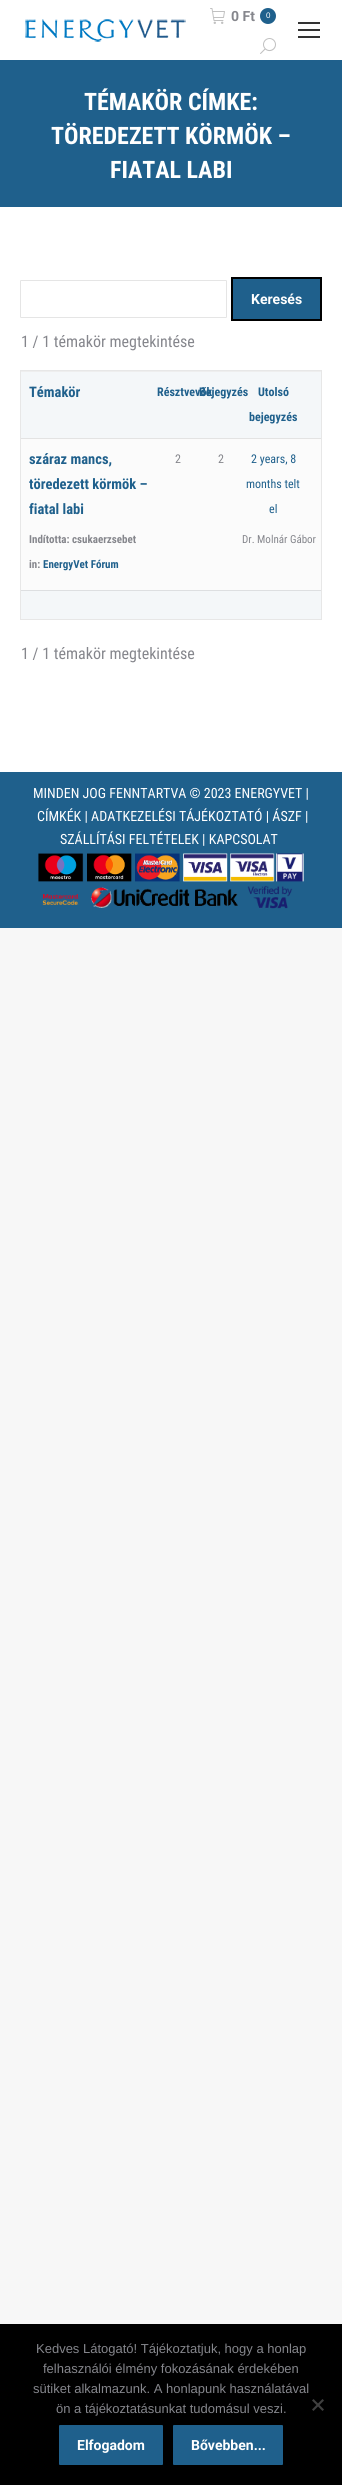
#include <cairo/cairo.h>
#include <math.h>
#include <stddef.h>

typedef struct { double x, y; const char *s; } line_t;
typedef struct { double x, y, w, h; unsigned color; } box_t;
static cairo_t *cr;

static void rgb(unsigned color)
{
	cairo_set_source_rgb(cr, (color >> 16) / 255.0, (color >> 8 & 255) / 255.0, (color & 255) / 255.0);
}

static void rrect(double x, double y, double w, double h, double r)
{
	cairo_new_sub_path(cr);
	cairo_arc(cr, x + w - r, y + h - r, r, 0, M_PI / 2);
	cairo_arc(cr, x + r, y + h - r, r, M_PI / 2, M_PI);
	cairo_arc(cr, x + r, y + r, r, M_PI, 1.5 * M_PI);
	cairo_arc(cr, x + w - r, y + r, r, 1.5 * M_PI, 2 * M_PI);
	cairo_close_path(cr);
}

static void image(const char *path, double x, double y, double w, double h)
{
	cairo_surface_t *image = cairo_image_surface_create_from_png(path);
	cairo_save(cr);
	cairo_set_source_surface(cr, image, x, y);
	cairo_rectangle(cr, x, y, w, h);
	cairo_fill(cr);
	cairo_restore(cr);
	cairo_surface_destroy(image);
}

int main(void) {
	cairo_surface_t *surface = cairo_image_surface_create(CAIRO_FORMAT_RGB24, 342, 2485);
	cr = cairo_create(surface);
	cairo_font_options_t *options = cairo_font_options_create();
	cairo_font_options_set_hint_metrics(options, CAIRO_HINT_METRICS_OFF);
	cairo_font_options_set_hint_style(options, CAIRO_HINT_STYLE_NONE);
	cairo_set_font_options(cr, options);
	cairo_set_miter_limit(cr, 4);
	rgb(0xf7f7f7);
	cairo_paint(cr);
	rgb(0xffffff);
	cairo_rectangle(cr, 0, 0, 342, 772);
	cairo_fill(cr);
	image("img/1.png", 210, 8, 15, 16);
	rgb(0x1f608c);
	cairo_arc(cr, 268, 16, 8, 0, 2 * M_PI);
	cairo_fill(cr);
	image("img/2.png", 260, 38, 16, 16);
	image("img/3.png", 25, 19, 161, 23);
	{
		static const box_t items[] = {
			{298, 22, 22, 2, 0x333333},
			{298, 29, 22, 2, 0x333333},
			{298, 36, 22, 2, 0x333333},
			{0, 60, 342, 147, 0x1f608c},
		};
		for (size_t i = 0; i < sizeof items / sizeof *items; i++) {
			rgb(items[i].color);
			cairo_rectangle(cr, items[i].x, items[i].y, items[i].w, items[i].h);
			cairo_fill(cr);
		}
	}
	rrect(20.5, 280.5, 206, 37, 0.5);
	rgb(0xe5e5e5);
	cairo_set_line_width(cr, 1);
	cairo_stroke(cr);
	rgb(0x1f608c);
	cairo_rectangle(cr, 232, 278, 89, 42);
	cairo_fill_preserve(cr);
	rgb(0x000000);
	cairo_set_line_width(cr, 2);
	cairo_stroke(cr);
	cairo_rectangle(cr, 20.5, 370.5, 301, 249);
	rgb(0xe7e7e7);
	cairo_set_line_width(cr, 1);
	cairo_stroke(cr);
	{
		static const box_t items[] = {
			{21, 372, 300, 66, 0xf4f7f9},
			{21, 371, 300, 1, 0xeeeeee},
			{21, 439, 300, 151, 0xfbfbfb},
			{21, 438, 300, 1, 0xe3e3e3},
			{21, 591, 300, 28, 0xf4f7f9},
			{21, 590, 300, 1, 0xdddfe1},
			{0, 772, 342, 156, 0x1f608c},
		};
		for (size_t i = 0; i < sizeof items / sizeof *items; i++) {
			rgb(items[i].color);
			cairo_rectangle(cr, items[i].x, items[i].y, items[i].w, items[i].h);
			cairo_fill(cr);
		}
	}
	image("img/4.png", 38, 853, 266, 56);
	rgb(0x000000);
	cairo_rectangle(cr, 0, 2324, 342, 161);
	cairo_fill(cr);
	rgb(0x404040);
	cairo_new_path(cr);
	cairo_move_to(cr, 322.5, 2399);
	cairo_line_to(cr, 324, 2400.5);
	cairo_line_to(cr, 313.5, 2411);
	cairo_line_to(cr, 312, 2409.5);
	cairo_close_path(cr);
	cairo_fill(cr);
	cairo_new_path(cr);
	cairo_move_to(cr, 312, 2400.5);
	cairo_line_to(cr, 313.5, 2399);
	cairo_line_to(cr, 324, 2409.5);
	cairo_line_to(cr, 322.5, 2411);
	cairo_close_path(cr);
	cairo_fill(cr);
	rgb(0x1f608c);
	rrect(59, 2425, 104, 40, 1);
	cairo_fill(cr);
	rrect(173, 2425, 110, 40, 1);
	cairo_fill(cr);
	cairo_select_font_face(cr, "Roboto", CAIRO_FONT_SLANT_NORMAL, CAIRO_FONT_WEIGHT_BOLD);
	cairo_set_font_size(cr, 14);
	rgb(0x85868c);
	cairo_move_to(cr, 231, 21);
	cairo_show_text(cr, "0 Ft");
	cairo_select_font_face(cr, "Liberation Sans", CAIRO_FONT_SLANT_NORMAL, CAIRO_FONT_WEIGHT_NORMAL);
	cairo_set_font_size(cr, 8);
	rgb(0xffffff);
	cairo_move_to(cr, 266, 18);
	cairo_show_text(cr, "0");
	cairo_select_font_face(cr, "Roboto Condensed", CAIRO_FONT_SLANT_NORMAL, CAIRO_FONT_WEIGHT_BOLD);
	cairo_set_font_size(cr, 24);
	{
		static const line_t items[] = {
			{84, 110, "TÉMAKÖR CÍMKE:"},
			{51, 144, "TÖREDEZETT KÖRMÖK –"},
			{110, 178, "FIATAL LABI"},
		};
		for (size_t i = 0; i < sizeof items / sizeof *items; i++) {
			cairo_move_to(cr, items[i].x, items[i].y);
			cairo_show_text(cr, items[i].s);
		}
	}
	cairo_select_font_face(cr, "Roboto", CAIRO_FONT_SLANT_NORMAL, CAIRO_FONT_WEIGHT_BOLD);
	cairo_set_font_size(cr, 14);
	cairo_move_to(cr, 251, 304);
	cairo_show_text(cr, "Keresés");
	cairo_select_font_face(cr, "Roboto Condensed", CAIRO_FONT_SLANT_NORMAL, CAIRO_FONT_WEIGHT_NORMAL);
	cairo_set_font_size(cr, 16);
	rgb(0x85868c);
	cairo_move_to(cr, 21, 347);
	cairo_show_text(cr, "1 / 1 témakör megtekintése");
	cairo_select_font_face(cr, "Roboto Condensed", CAIRO_FONT_SLANT_NORMAL, CAIRO_FONT_WEIGHT_BOLD);
	cairo_set_font_size(cr, 14.5);
	rgb(0x1f608c);
	cairo_move_to(cr, 29, 397);
	cairo_show_text(cr, "Témakör");
	cairo_set_font_size(cr, 12);
	{
		static const line_t items[] = {
			{157, 396, "Résztvevők"},
			{199, 396, "Bejegyzés"},
			{258, 396, "Utolsó"},
			{249, 421, "bejegyzés"},
		};
		for (size_t i = 0; i < sizeof items / sizeof *items; i++) {
			cairo_move_to(cr, items[i].x, items[i].y);
			cairo_show_text(cr, items[i].s);
		}
	}
	cairo_set_font_size(cr, 14.5);
	{
		static const line_t items[] = {
			{29, 464, "száraz mancs,"},
			{29, 489, "töredezett körmök –"},
			{29, 514, "fiatal labi"},
		};
		for (size_t i = 0; i < sizeof items / sizeof *items; i++) {
			cairo_move_to(cr, items[i].x, items[i].y);
			cairo_show_text(cr, items[i].s);
		}
	}
	cairo_set_font_size(cr, 11);
	rgb(0x85868c);
	cairo_move_to(cr, 29, 543);
	cairo_show_text(cr, "Indította: csukaerzsebet");
	cairo_move_to(cr, 29, 568);
	cairo_show_text(cr, "in:");
	rgb(0x1f608c);
	cairo_move_to(cr, 43, 568);
	cairo_show_text(cr, "EnergyVet Fórum");
	cairo_select_font_face(cr, "Roboto Condensed", CAIRO_FONT_SLANT_NORMAL, CAIRO_FONT_WEIGHT_NORMAL);
	cairo_set_font_size(cr, 12);
	rgb(0x85868c);
	cairo_move_to(cr, 175, 463);
	cairo_show_text(cr, "2");
	cairo_move_to(cr, 218, 463);
	cairo_show_text(cr, "2");
	rgb(0x1f608c);
	{
		static const line_t items[] = {
			{251, 463, "2 years, 8"},
			{246, 488, "months telt"},
			{269, 513, "el"},
		};
		for (size_t i = 0; i < sizeof items / sizeof *items; i++) {
			cairo_move_to(cr, items[i].x, items[i].y);
			cairo_show_text(cr, items[i].s);
		}
	}
	cairo_set_font_size(cr, 11);
	rgb(0x85868c);
	cairo_move_to(cr, 242, 543);
	cairo_show_text(cr, "Dr. Molnár Gábor");
	cairo_set_font_size(cr, 16);
	cairo_move_to(cr, 21, 659);
	cairo_show_text(cr, "1 / 1 témakör megtekintése");
	cairo_set_font_size(cr, 14);
	rgb(0xffffff);
	{
		static const line_t items[] = {
			{33, 798, "MINDEN JOG FENNTARTVA © 2023 ENERGYVET |"},
			{37, 821, "CÍMKÉK | ADATKEZELÉSI TÁJÉKOZTATÓ | ÁSZF |"},
			{60, 844, "SZÁLLÍTÁSI FELTÉTELEK | KAPCSOLAT"},
		};
		for (size_t i = 0; i < sizeof items / sizeof *items; i++) {
			cairo_move_to(cr, items[i].x, items[i].y);
			cairo_show_text(cr, items[i].s);
		}
	}
	cairo_select_font_face(cr, "Liberation Sans", CAIRO_FONT_SLANT_NORMAL, CAIRO_FONT_WEIGHT_NORMAL);
	cairo_set_font_size(cr, 13);
	rgb(0x85868c);
	{
		static const line_t items[] = {
			{36, 2353, "Kedves Látogató! Tájékoztatjuk, hogy a honlap"},
			{43, 2373, "felhasználói élmény fokozásának érdekében"},
			{33, 2393, "sütiket alkalmazunk. A honlapunk használatával"},
			{56, 2413, "ön a tájékoztatásunkat tudomásul veszi."},
		};
		for (size_t i = 0; i < sizeof items / sizeof *items; i++) {
			cairo_move_to(cr, items[i].x, items[i].y);
			cairo_show_text(cr, items[i].s);
		}
	}
	cairo_select_font_face(cr, "Roboto", CAIRO_FONT_SLANT_NORMAL, CAIRO_FONT_WEIGHT_BOLD);
	cairo_set_font_size(cr, 14);
	rgb(0xffffff);
	cairo_move_to(cr, 77, 2450);
	cairo_show_text(cr, "Elfogadom");
	cairo_move_to(cr, 191, 2450);
	cairo_show_text(cr, "Bővebben...");
	cairo_surface_write_to_png(surface, "page.png");
	cairo_font_options_destroy(options);
	cairo_destroy(cr);
	cairo_surface_destroy(surface);
	return 0;
}
